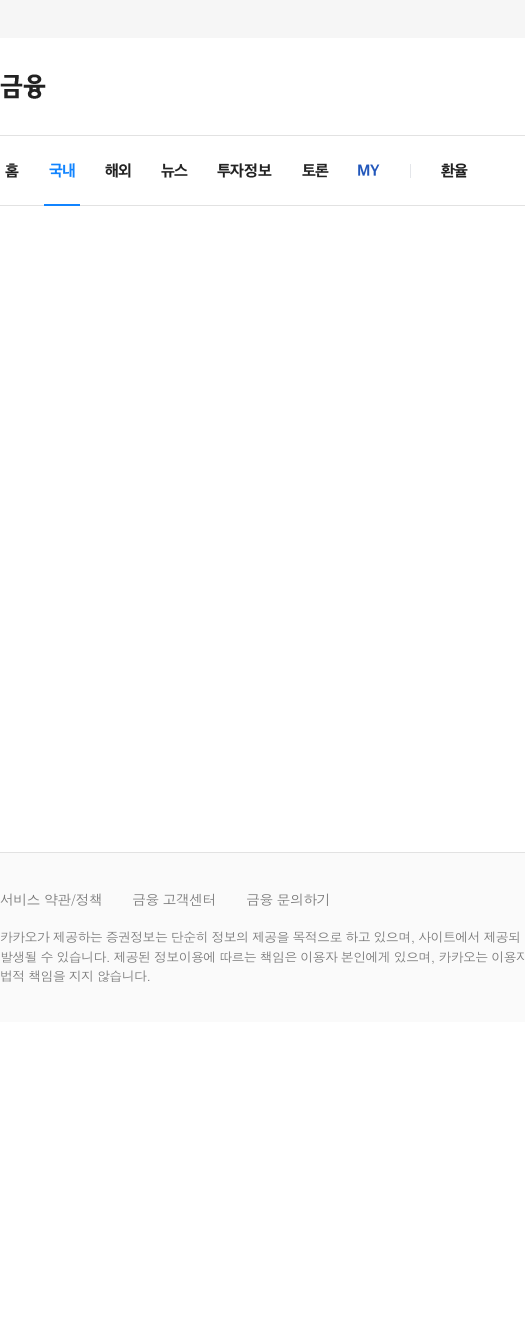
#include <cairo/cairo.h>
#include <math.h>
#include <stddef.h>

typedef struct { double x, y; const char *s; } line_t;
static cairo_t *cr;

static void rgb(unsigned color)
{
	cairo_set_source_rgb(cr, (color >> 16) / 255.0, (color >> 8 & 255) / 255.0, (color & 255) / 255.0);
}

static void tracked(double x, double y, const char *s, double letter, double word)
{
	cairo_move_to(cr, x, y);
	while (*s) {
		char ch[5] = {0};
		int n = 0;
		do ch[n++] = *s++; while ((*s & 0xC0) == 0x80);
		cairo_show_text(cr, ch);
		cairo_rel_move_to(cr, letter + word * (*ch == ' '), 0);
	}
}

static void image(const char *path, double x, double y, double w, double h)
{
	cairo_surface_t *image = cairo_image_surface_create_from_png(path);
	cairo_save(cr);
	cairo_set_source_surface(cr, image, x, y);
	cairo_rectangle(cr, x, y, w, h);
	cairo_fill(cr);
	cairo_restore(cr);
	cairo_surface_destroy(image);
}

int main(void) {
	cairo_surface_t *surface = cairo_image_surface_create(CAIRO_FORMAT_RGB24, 525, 1335);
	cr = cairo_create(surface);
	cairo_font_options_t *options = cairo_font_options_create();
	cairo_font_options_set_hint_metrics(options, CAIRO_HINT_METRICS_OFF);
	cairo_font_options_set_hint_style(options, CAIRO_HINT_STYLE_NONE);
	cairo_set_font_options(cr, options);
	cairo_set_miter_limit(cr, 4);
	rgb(0xffffff);
	cairo_paint(cr);
	rgb(0xf6f6f6);
	cairo_rectangle(cr, 0, 0, 525, 38);
	cairo_fill(cr);
	image("img/1.png", 0, 74, 46, 25);
	rgb(0xe2e2e2);
	cairo_rectangle(cr, 0, 135, 525, 1);
	cairo_fill(cr);
	cairo_rectangle(cr, 0, 205, 525, 1);
	cairo_fill(cr);
	image("img/2.png", 5, 163, 14, 15);
	image("img/3.png", 49, 163, 26, 15);
	rgb(0x1184ff);
	cairo_rectangle(cr, 44, 204, 36, 2);
	cairo_fill(cr);
	image("img/4.png", 105, 163, 26, 15);
	image("img/5.png", 161, 163, 27, 15);
	image("img/6.png", 217, 163, 55, 15);
	image("img/7.png", 302, 163, 27, 15);
	image("img/8.png", 358, 164, 22, 12);
	rgb(0xe4e6ea);
	cairo_rectangle(cr, 410, 164, 1, 14);
	cairo_fill(cr);
	image("img/9.png", 441, 163, 27, 15);
	rgb(0xfafafa);
	cairo_rectangle(cr, 0, 853, 525, 169);
	cairo_fill(cr);
	rgb(0xe2e2e2);
	cairo_rectangle(cr, 0, 852, 525, 1);
	cairo_fill(cr);
	cairo_select_font_face(cr, "Dotum", CAIRO_FONT_SLANT_NORMAL, CAIRO_FONT_WEIGHT_NORMAL);
	cairo_set_font_size(cr, 14);
	rgb(0x777777);
	{
		static const line_t items[] = {
			{0, 905, "서비스 약관/정책"},
			{132, 905, "금융 고객센터"},
			{246, 905, "금융 문의하기"},
		};
		for (size_t i = 0; i < sizeof items / sizeof *items; i++) {
			tracked(items[i].x, items[i].y, items[i].s, -0.7, 0);
		}
	}
	cairo_set_font_size(cr, 13);
	{
		static const line_t items[] = {
			{0, 942, "카카오가 제공하는 증권정보는 단순히 정보의 제공을 목적으로 하고 있으며, 사이트에서 제공되"},
			{0, 962, "발생될 수 있습니다. 제공된 정보이용에 따르는 책임은 이용자 본인에게 있으며, 카카오는 이용자"},
			{0, 981, "법적 책임을 지지 않습니다."},
		};
		for (size_t i = 0; i < sizeof items / sizeof *items; i++) {
			tracked(items[i].x, items[i].y, items[i].s, -0.7, 0);
		}
	}
	cairo_surface_write_to_png(surface, "page.png");
	cairo_font_options_destroy(options);
	cairo_destroy(cr);
	cairo_surface_destroy(surface);
	return 0;
}
